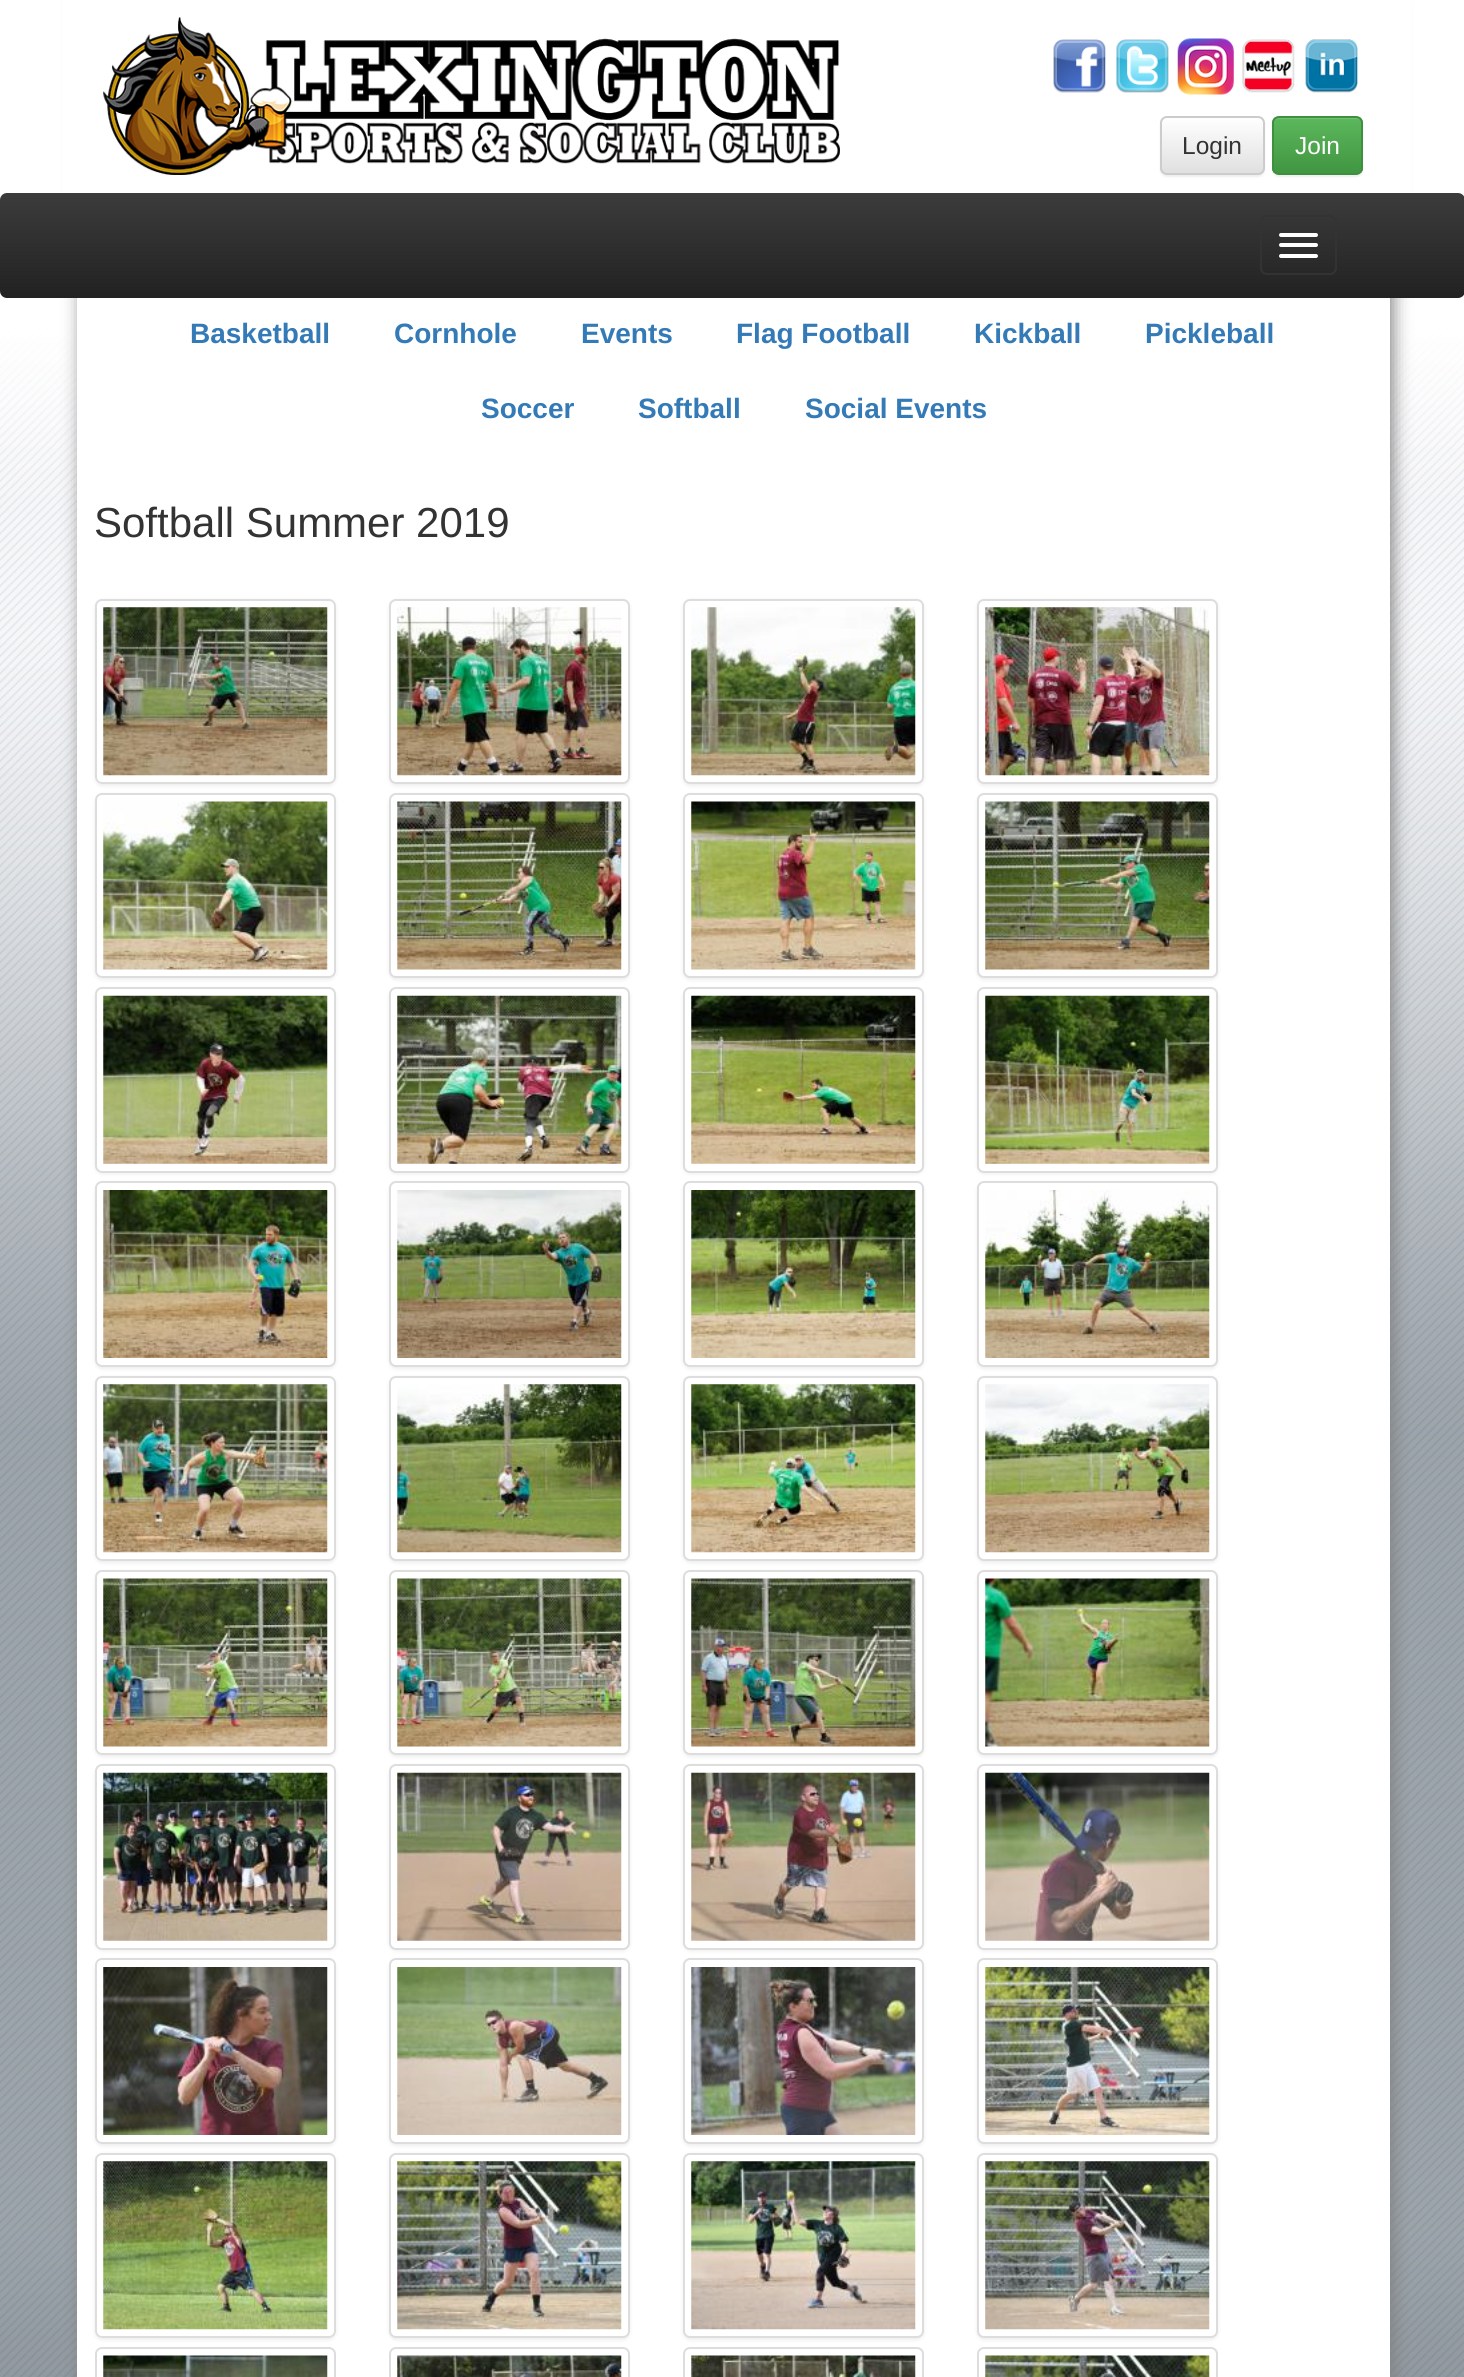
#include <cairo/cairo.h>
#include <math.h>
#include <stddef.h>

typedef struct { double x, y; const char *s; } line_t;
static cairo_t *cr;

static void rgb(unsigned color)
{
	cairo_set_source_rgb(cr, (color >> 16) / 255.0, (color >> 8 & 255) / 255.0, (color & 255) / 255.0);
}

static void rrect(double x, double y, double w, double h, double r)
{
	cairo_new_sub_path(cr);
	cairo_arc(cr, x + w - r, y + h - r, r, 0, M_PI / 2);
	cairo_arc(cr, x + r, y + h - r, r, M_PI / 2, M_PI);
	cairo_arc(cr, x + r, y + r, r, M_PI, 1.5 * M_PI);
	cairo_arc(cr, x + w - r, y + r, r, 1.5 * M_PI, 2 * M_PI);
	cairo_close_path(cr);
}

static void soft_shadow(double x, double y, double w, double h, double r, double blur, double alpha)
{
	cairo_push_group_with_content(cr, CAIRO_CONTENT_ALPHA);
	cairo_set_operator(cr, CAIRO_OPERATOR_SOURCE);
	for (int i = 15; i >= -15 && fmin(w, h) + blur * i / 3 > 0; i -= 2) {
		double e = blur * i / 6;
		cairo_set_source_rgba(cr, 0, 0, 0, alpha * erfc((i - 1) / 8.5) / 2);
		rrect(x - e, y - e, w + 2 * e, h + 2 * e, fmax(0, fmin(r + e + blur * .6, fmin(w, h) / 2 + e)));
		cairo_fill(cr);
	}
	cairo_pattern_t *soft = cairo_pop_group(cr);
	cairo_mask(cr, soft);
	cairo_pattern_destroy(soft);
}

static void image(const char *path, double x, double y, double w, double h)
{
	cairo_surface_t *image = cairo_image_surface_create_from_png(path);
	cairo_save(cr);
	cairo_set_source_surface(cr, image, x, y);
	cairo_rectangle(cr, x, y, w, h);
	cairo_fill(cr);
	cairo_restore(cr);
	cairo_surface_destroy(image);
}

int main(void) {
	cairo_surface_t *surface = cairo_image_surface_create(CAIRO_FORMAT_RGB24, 1464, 2377);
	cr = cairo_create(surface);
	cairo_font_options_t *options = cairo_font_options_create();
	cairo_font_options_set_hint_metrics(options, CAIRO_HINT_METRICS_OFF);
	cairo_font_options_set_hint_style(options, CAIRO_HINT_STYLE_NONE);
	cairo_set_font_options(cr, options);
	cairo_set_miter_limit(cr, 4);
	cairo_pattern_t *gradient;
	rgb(0xffffff);
	cairo_paint(cr);
	image("img/1.png", 0, 193, 1464, 2184);
	rgb(0x808080);
	soft_shadow(81, 4, 1312, 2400, 0, 9, 1);
	rgb(0xffffff);
	cairo_rectangle(cr, 63, 0, 1348, 193);
	cairo_fill(cr);
	image("img/2.png", 103, 17, 737, 158);
	image("img/3.png", 1053, 39, 53, 54);
	image("img/4.png", 1116, 39, 53, 54);
	image("img/5.png", 1177, 38, 57, 57);
	image("img/6.png", 1242, 39, 53, 54);
	image("img/7.png", 1305, 39, 53, 54);
	rgb(0x000000);
	soft_shadow(1160, 117, 105, 60, 7, 1, 0.07);
	cairo_save(cr);
	rrect(1160, 116, 105, 59, 7);
	cairo_clip(cr);
	gradient = cairo_pattern_create_linear(1213, 117, 1213, 173);
	cairo_pattern_add_color_stop_rgba(gradient, 0, 1, 1, 1, 1);
	cairo_pattern_add_color_stop_rgba(gradient, 1, 0.878, 0.878, 0.878, 1);
	cairo_set_source(cr, gradient);
	cairo_pattern_destroy(gradient);
	cairo_rectangle(cr, 1160, 117, 105, 56);
	cairo_fill(cr);
	cairo_restore(cr);
	rrect(1161, 117, 103, 57, 6);
	rgb(0xcccccc);
	cairo_stroke(cr);
	rgb(0x000000);
	soft_shadow(1272, 117, 91, 60, 7, 1, 0.07);
	cairo_save(cr);
	rrect(1272, 116, 91, 59, 7);
	cairo_clip(cr);
	gradient = cairo_pattern_create_linear(1318, 117, 1318, 173);
	cairo_pattern_add_color_stop_rgba(gradient, 0, 0.361, 0.722, 0.361, 1);
	cairo_pattern_add_color_stop_rgba(gradient, 1, 0.255, 0.588, 0.255, 1);
	cairo_set_source(cr, gradient);
	cairo_pattern_destroy(gradient);
	cairo_rectangle(cr, 1272, 117, 91, 56);
	cairo_fill(cr);
	cairo_restore(cr);
	cairo_set_source_rgba(cr, 1, 1, 1, 0.15);
	cairo_new_path(cr);
	cairo_move_to(cr, 1279, 119);
	cairo_line_to(cr, 1356, 119);
	cairo_curve_to(cr, 1359, 119, 1362, 121, 1362, 124);
	cairo_curve_to(cr, 1362, 114, 1352, 117, 1344, 117);
	cairo_line_to(cr, 1292, 117);
	cairo_curve_to(cr, 1284, 117, 1274, 114, 1274, 124);
	cairo_curve_to(cr, 1274, 121, 1276, 119, 1279, 119);
	cairo_close_path(cr);
	cairo_fill(cr);
	rrect(1273, 117, 89, 57, 6);
	rgb(0x3e8f3e);
	cairo_stroke(cr);
	gradient = cairo_pattern_create_linear(732, 192, 732, 298);
	cairo_pattern_add_color_stop_rgba(gradient, 0, 0.235, 0.235, 0.235, 1);
	cairo_pattern_add_color_stop_rgba(gradient, 1, 0.133, 0.133, 0.133, 1);
	cairo_set_source(cr, gradient);
	cairo_pattern_destroy(gradient);
	rrect(0, 193, 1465, 105, 7);
	cairo_fill(cr);
	rrect(1261, 216, 75, 58, 6);
	rgb(0x333333);
	cairo_stroke(cr);
	rgb(0xffffff);
	rrect(1279, 233, 39, 4, 2);
	cairo_fill(cr);
	rrect(1279, 243, 39, 4, 2);
	cairo_fill(cr);
	rrect(1279, 254, 39, 4, 2);
	cairo_fill(cr);
	cairo_rectangle(cr, 77, 298, 1313, 2079);
	cairo_fill(cr);
	cairo_save(cr);
	cairo_set_fill_rule(cr, CAIRO_FILL_RULE_EVEN_ODD);
	cairo_new_path(cr);
	cairo_move_to(cr, 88, 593);
	cairo_line_to(cr, 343, 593);
	cairo_line_to(cr, 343, 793);
	cairo_line_to(cr, 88, 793);
	cairo_close_path(cr);
	cairo_move_to(cr, 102, 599);
	cairo_line_to(cr, 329, 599);
	cairo_curve_to(cr, 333, 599, 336, 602, 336, 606);
	cairo_line_to(cr, 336, 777);
	cairo_curve_to(cr, 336, 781, 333, 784, 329, 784);
	cairo_line_to(cr, 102, 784);
	cairo_curve_to(cr, 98, 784, 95, 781, 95, 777);
	cairo_line_to(cr, 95, 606);
	cairo_curve_to(cr, 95, 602, 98, 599, 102, 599);
	cairo_close_path(cr);
	cairo_clip(cr);
	rgb(0x000000);
	soft_shadow(95, 600, 241, 186, 7, 2, 0.07);
	cairo_restore(cr);
	rrect(96, 600, 239, 183, 6);
	cairo_fill_preserve(cr);
	rgb(0xdddddd);
	cairo_stroke(cr);
	image("img/8.png", 103, 607, 225, 169);
	rgb(0x000000);
	soft_shadow(389, 600, 241, 186, 7, 2, 0.07);
	rgb(0xffffff);
	rrect(390, 600, 239, 183, 6);
	cairo_fill_preserve(cr);
	rgb(0xdddddd);
	cairo_stroke(cr);
	image("img/9.png", 397, 607, 225, 169);
	rgb(0x000000);
	soft_shadow(683, 600, 241, 186, 7, 2, 0.07);
	rgb(0xffffff);
	rrect(684, 600, 239, 183, 6);
	cairo_fill_preserve(cr);
	rgb(0xdddddd);
	cairo_stroke(cr);
	image("img/10.png", 691, 607, 225, 169);
	rgb(0x000000);
	soft_shadow(977, 600, 241, 186, 7, 2, 0.07);
	rgb(0xffffff);
	rrect(978, 600, 239, 183, 6);
	cairo_fill_preserve(cr);
	rgb(0xdddddd);
	cairo_stroke(cr);
	image("img/11.png", 985, 607, 225, 169);
	cairo_save(cr);
	cairo_set_fill_rule(cr, CAIRO_FILL_RULE_EVEN_ODD);
	cairo_new_path(cr);
	cairo_move_to(cr, 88, 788);
	cairo_line_to(cr, 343, 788);
	cairo_line_to(cr, 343, 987);
	cairo_line_to(cr, 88, 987);
	cairo_close_path(cr);
	cairo_move_to(cr, 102, 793);
	cairo_line_to(cr, 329, 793);
	cairo_curve_to(cr, 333, 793, 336, 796, 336, 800);
	cairo_line_to(cr, 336, 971);
	cairo_curve_to(cr, 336, 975, 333, 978, 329, 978);
	cairo_line_to(cr, 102, 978);
	cairo_curve_to(cr, 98, 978, 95, 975, 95, 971);
	cairo_line_to(cr, 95, 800);
	cairo_curve_to(cr, 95, 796, 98, 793, 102, 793);
	cairo_close_path(cr);
	cairo_clip(cr);
	rgb(0x000000);
	soft_shadow(95, 795, 241, 185, 7, 2, 0.07);
	cairo_restore(cr);
	rrect(96, 794, 239, 183, 6);
	cairo_stroke(cr);
	image("img/12.png", 103, 801, 225, 169);
	rgb(0x000000);
	soft_shadow(389, 795, 241, 185, 7, 2, 0.07);
	rgb(0xffffff);
	rrect(390, 794, 239, 183, 6);
	cairo_fill_preserve(cr);
	rgb(0xdddddd);
	cairo_stroke(cr);
	image("img/13.png", 397, 801, 225, 169);
	rgb(0x000000);
	soft_shadow(683, 795, 241, 185, 7, 2, 0.07);
	rgb(0xffffff);
	rrect(684, 794, 239, 183, 6);
	cairo_fill_preserve(cr);
	rgb(0xdddddd);
	cairo_stroke(cr);
	image("img/14.png", 691, 801, 225, 169);
	rgb(0x000000);
	soft_shadow(977, 795, 241, 185, 7, 2, 0.07);
	rgb(0xffffff);
	rrect(978, 794, 239, 183, 6);
	cairo_fill_preserve(cr);
	rgb(0xdddddd);
	cairo_stroke(cr);
	image("img/15.png", 985, 801, 225, 169);
	cairo_save(cr);
	cairo_set_fill_rule(cr, CAIRO_FILL_RULE_EVEN_ODD);
	cairo_new_path(cr);
	cairo_move_to(cr, 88, 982);
	cairo_line_to(cr, 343, 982);
	cairo_line_to(cr, 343, 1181);
	cairo_line_to(cr, 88, 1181);
	cairo_close_path(cr);
	cairo_move_to(cr, 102, 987);
	cairo_line_to(cr, 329, 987);
	cairo_curve_to(cr, 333, 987, 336, 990, 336, 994);
	cairo_line_to(cr, 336, 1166);
	cairo_curve_to(cr, 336, 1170, 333, 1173, 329, 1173);
	cairo_line_to(cr, 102, 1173);
	cairo_curve_to(cr, 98, 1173, 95, 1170, 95, 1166);
	cairo_line_to(cr, 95, 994);
	cairo_curve_to(cr, 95, 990, 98, 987, 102, 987);
	cairo_close_path(cr);
	cairo_clip(cr);
	rgb(0x000000);
	soft_shadow(95, 989, 241, 185, 7, 2, 0.07);
	cairo_restore(cr);
	rgb(0xffffff);
	rrect(96, 988, 239, 184, 6);
	cairo_fill_preserve(cr);
	rgb(0xdddddd);
	cairo_stroke(cr);
	image("img/16.png", 103, 995, 225, 169);
	rgb(0x000000);
	soft_shadow(389, 989, 241, 185, 7, 2, 0.07);
	rgb(0xffffff);
	rrect(390, 988, 239, 184, 6);
	cairo_fill_preserve(cr);
	rgb(0xdddddd);
	cairo_stroke(cr);
	image("img/17.png", 397, 995, 225, 169);
	rgb(0x000000);
	soft_shadow(683, 989, 241, 185, 7, 2, 0.07);
	rgb(0xffffff);
	rrect(684, 988, 239, 184, 6);
	cairo_fill_preserve(cr);
	rgb(0xdddddd);
	cairo_stroke(cr);
	image("img/18.png", 691, 995, 225, 169);
	rgb(0x000000);
	soft_shadow(977, 989, 241, 185, 7, 2, 0.07);
	rgb(0xffffff);
	rrect(978, 988, 239, 184, 6);
	cairo_fill_preserve(cr);
	rgb(0xdddddd);
	cairo_stroke(cr);
	image("img/19.png", 985, 995, 225, 169);
	cairo_save(cr);
	cairo_set_fill_rule(cr, CAIRO_FILL_RULE_EVEN_ODD);
	cairo_new_path(cr);
	cairo_move_to(cr, 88, 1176);
	cairo_line_to(cr, 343, 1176);
	cairo_line_to(cr, 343, 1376);
	cairo_line_to(cr, 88, 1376);
	cairo_close_path(cr);
	cairo_move_to(cr, 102, 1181);
	cairo_line_to(cr, 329, 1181);
	cairo_curve_to(cr, 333, 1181, 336, 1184, 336, 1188);
	cairo_line_to(cr, 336, 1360);
	cairo_curve_to(cr, 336, 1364, 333, 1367, 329, 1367);
	cairo_line_to(cr, 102, 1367);
	cairo_curve_to(cr, 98, 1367, 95, 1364, 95, 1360);
	cairo_line_to(cr, 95, 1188);
	cairo_curve_to(cr, 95, 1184, 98, 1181, 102, 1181);
	cairo_close_path(cr);
	cairo_clip(cr);
	rgb(0x000000);
	soft_shadow(95, 1183, 241, 186, 7, 2, 0.07);
	cairo_restore(cr);
	rgb(0xffffff);
	rrect(96, 1182, 239, 184, 6);
	cairo_fill_preserve(cr);
	rgb(0xdddddd);
	cairo_stroke(cr);
	image("img/20.png", 103, 1190, 225, 168);
	rgb(0x000000);
	soft_shadow(389, 1183, 241, 186, 7, 2, 0.07);
	rgb(0xffffff);
	rrect(390, 1182, 239, 184, 6);
	cairo_fill_preserve(cr);
	rgb(0xdddddd);
	cairo_stroke(cr);
	image("img/21.png", 397, 1190, 225, 168);
	rgb(0x000000);
	soft_shadow(683, 1183, 241, 186, 7, 2, 0.07);
	rgb(0xffffff);
	rrect(684, 1182, 239, 184, 6);
	cairo_fill_preserve(cr);
	rgb(0xdddddd);
	cairo_stroke(cr);
	image("img/22.png", 691, 1190, 225, 168);
	rgb(0x000000);
	soft_shadow(977, 1183, 241, 186, 7, 2, 0.07);
	rgb(0xffffff);
	rrect(978, 1182, 239, 184, 6);
	cairo_fill_preserve(cr);
	rgb(0xdddddd);
	cairo_stroke(cr);
	image("img/23.png", 985, 1190, 225, 168);
	cairo_save(cr);
	cairo_set_fill_rule(cr, CAIRO_FILL_RULE_EVEN_ODD);
	cairo_new_path(cr);
	cairo_move_to(cr, 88, 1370);
	cairo_line_to(cr, 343, 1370);
	cairo_line_to(cr, 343, 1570);
	cairo_line_to(cr, 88, 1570);
	cairo_close_path(cr);
	cairo_move_to(cr, 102, 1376);
	cairo_line_to(cr, 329, 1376);
	cairo_curve_to(cr, 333, 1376, 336, 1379, 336, 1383);
	cairo_line_to(cr, 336, 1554);
	cairo_curve_to(cr, 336, 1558, 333, 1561, 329, 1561);
	cairo_line_to(cr, 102, 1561);
	cairo_curve_to(cr, 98, 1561, 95, 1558, 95, 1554);
	cairo_line_to(cr, 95, 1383);
	cairo_curve_to(cr, 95, 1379, 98, 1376, 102, 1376);
	cairo_close_path(cr);
	cairo_clip(cr);
	rgb(0x000000);
	soft_shadow(95, 1377, 241, 186, 7, 2, 0.07);
	cairo_restore(cr);
	rgb(0xffffff);
	rrect(96, 1377, 239, 183, 6);
	cairo_fill_preserve(cr);
	rgb(0xdddddd);
	cairo_stroke(cr);
	image("img/24.png", 103, 1384, 225, 169);
	rgb(0x000000);
	soft_shadow(389, 1377, 241, 186, 7, 2, 0.07);
	rgb(0xffffff);
	rrect(390, 1377, 239, 183, 6);
	cairo_fill_preserve(cr);
	rgb(0xdddddd);
	cairo_stroke(cr);
	image("img/25.png", 397, 1384, 225, 169);
	rgb(0x000000);
	soft_shadow(683, 1377, 241, 186, 7, 2, 0.07);
	rgb(0xffffff);
	rrect(684, 1377, 239, 183, 6);
	cairo_fill_preserve(cr);
	rgb(0xdddddd);
	cairo_stroke(cr);
	image("img/26.png", 691, 1384, 225, 169);
	rgb(0x000000);
	soft_shadow(977, 1377, 241, 186, 7, 2, 0.07);
	rgb(0xffffff);
	rrect(978, 1377, 239, 183, 6);
	cairo_fill_preserve(cr);
	rgb(0xdddddd);
	cairo_stroke(cr);
	image("img/27.png", 985, 1384, 225, 169);
	cairo_save(cr);
	cairo_set_fill_rule(cr, CAIRO_FILL_RULE_EVEN_ODD);
	cairo_new_path(cr);
	cairo_move_to(cr, 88, 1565);
	cairo_line_to(cr, 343, 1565);
	cairo_line_to(cr, 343, 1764);
	cairo_line_to(cr, 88, 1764);
	cairo_close_path(cr);
	cairo_move_to(cr, 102, 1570);
	cairo_line_to(cr, 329, 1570);
	cairo_curve_to(cr, 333, 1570, 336, 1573, 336, 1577);
	cairo_line_to(cr, 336, 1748);
	cairo_curve_to(cr, 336, 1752, 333, 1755, 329, 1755);
	cairo_line_to(cr, 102, 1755);
	cairo_curve_to(cr, 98, 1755, 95, 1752, 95, 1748);
	cairo_line_to(cr, 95, 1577);
	cairo_curve_to(cr, 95, 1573, 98, 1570, 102, 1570);
	cairo_close_path(cr);
	cairo_clip(cr);
	rgb(0x000000);
	soft_shadow(95, 1572, 241, 185, 7, 2, 0.07);
	cairo_restore(cr);
	rrect(96, 1571, 239, 183, 6);
	cairo_stroke(cr);
	image("img/28.png", 103, 1578, 225, 169);
	rgb(0x000000);
	soft_shadow(389, 1572, 241, 185, 7, 2, 0.07);
	rgb(0xffffff);
	rrect(390, 1571, 239, 183, 6);
	cairo_fill_preserve(cr);
	rgb(0xdddddd);
	cairo_stroke(cr);
	image("img/29.png", 397, 1578, 225, 169);
	rgb(0x000000);
	soft_shadow(683, 1572, 241, 185, 7, 2, 0.07);
	rgb(0xffffff);
	rrect(684, 1571, 239, 183, 6);
	cairo_fill_preserve(cr);
	rgb(0xdddddd);
	cairo_stroke(cr);
	image("img/30.png", 691, 1578, 225, 169);
	rgb(0x000000);
	soft_shadow(977, 1572, 241, 185, 7, 2, 0.07);
	rgb(0xffffff);
	rrect(978, 1571, 239, 183, 6);
	cairo_fill_preserve(cr);
	rgb(0xdddddd);
	cairo_stroke(cr);
	image("img/31.png", 985, 1578, 225, 169);
	cairo_save(cr);
	cairo_set_fill_rule(cr, CAIRO_FILL_RULE_EVEN_ODD);
	cairo_new_path(cr);
	cairo_move_to(cr, 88, 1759);
	cairo_line_to(cr, 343, 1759);
	cairo_line_to(cr, 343, 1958);
	cairo_line_to(cr, 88, 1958);
	cairo_close_path(cr);
	cairo_move_to(cr, 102, 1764);
	cairo_line_to(cr, 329, 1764);
	cairo_curve_to(cr, 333, 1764, 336, 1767, 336, 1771);
	cairo_line_to(cr, 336, 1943);
	cairo_curve_to(cr, 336, 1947, 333, 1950, 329, 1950);
	cairo_line_to(cr, 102, 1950);
	cairo_curve_to(cr, 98, 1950, 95, 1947, 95, 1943);
	cairo_line_to(cr, 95, 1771);
	cairo_curve_to(cr, 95, 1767, 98, 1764, 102, 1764);
	cairo_close_path(cr);
	cairo_clip(cr);
	rgb(0x000000);
	soft_shadow(95, 1766, 241, 185, 7, 2, 0.07);
	cairo_restore(cr);
	rgb(0xffffff);
	rrect(96, 1765, 239, 184, 6);
	cairo_fill_preserve(cr);
	rgb(0xdddddd);
	cairo_stroke(cr);
	image("img/32.png", 103, 1772, 225, 169);
	rgb(0x000000);
	soft_shadow(389, 1766, 241, 185, 7, 2, 0.07);
	rgb(0xffffff);
	rrect(390, 1765, 239, 184, 6);
	cairo_fill_preserve(cr);
	rgb(0xdddddd);
	cairo_stroke(cr);
	image("img/33.png", 397, 1772, 225, 169);
	rgb(0x000000);
	soft_shadow(683, 1766, 241, 185, 7, 2, 0.07);
	rgb(0xffffff);
	rrect(684, 1765, 239, 184, 6);
	cairo_fill_preserve(cr);
	rgb(0xdddddd);
	cairo_stroke(cr);
	image("img/34.png", 691, 1772, 225, 169);
	rgb(0x000000);
	soft_shadow(977, 1766, 241, 185, 7, 2, 0.07);
	rgb(0xffffff);
	rrect(978, 1765, 239, 184, 6);
	cairo_fill_preserve(cr);
	rgb(0xdddddd);
	cairo_stroke(cr);
	image("img/35.png", 985, 1772, 225, 169);
	cairo_save(cr);
	cairo_set_fill_rule(cr, CAIRO_FILL_RULE_EVEN_ODD);
	cairo_new_path(cr);
	cairo_move_to(cr, 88, 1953);
	cairo_line_to(cr, 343, 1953);
	cairo_line_to(cr, 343, 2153);
	cairo_line_to(cr, 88, 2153);
	cairo_close_path(cr);
	cairo_move_to(cr, 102, 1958);
	cairo_line_to(cr, 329, 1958);
	cairo_curve_to(cr, 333, 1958, 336, 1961, 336, 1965);
	cairo_line_to(cr, 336, 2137);
	cairo_curve_to(cr, 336, 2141, 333, 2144, 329, 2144);
	cairo_line_to(cr, 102, 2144);
	cairo_curve_to(cr, 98, 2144, 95, 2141, 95, 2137);
	cairo_line_to(cr, 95, 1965);
	cairo_curve_to(cr, 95, 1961, 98, 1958, 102, 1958);
	cairo_close_path(cr);
	cairo_clip(cr);
	rgb(0x000000);
	soft_shadow(95, 1960, 241, 186, 7, 2, 0.07);
	cairo_restore(cr);
	rgb(0xffffff);
	rrect(96, 1959, 239, 184, 6);
	cairo_fill_preserve(cr);
	rgb(0xdddddd);
	cairo_stroke(cr);
	image("img/36.png", 103, 1967, 225, 168);
	rgb(0x000000);
	soft_shadow(389, 1960, 241, 186, 7, 2, 0.07);
	rgb(0xffffff);
	rrect(390, 1959, 239, 184, 6);
	cairo_fill_preserve(cr);
	rgb(0xdddddd);
	cairo_stroke(cr);
	image("img/37.png", 397, 1967, 225, 168);
	rgb(0x000000);
	soft_shadow(683, 1960, 241, 186, 7, 2, 0.07);
	rgb(0xffffff);
	rrect(684, 1959, 239, 184, 6);
	cairo_fill_preserve(cr);
	rgb(0xdddddd);
	cairo_stroke(cr);
	image("img/38.png", 691, 1967, 225, 168);
	rgb(0x000000);
	soft_shadow(977, 1960, 241, 186, 7, 2, 0.07);
	rgb(0xffffff);
	rrect(978, 1959, 239, 184, 6);
	cairo_fill_preserve(cr);
	rgb(0xdddddd);
	cairo_stroke(cr);
	image("img/39.png", 985, 1967, 225, 168);
	cairo_save(cr);
	cairo_set_fill_rule(cr, CAIRO_FILL_RULE_EVEN_ODD);
	cairo_new_path(cr);
	cairo_move_to(cr, 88, 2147);
	cairo_line_to(cr, 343, 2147);
	cairo_line_to(cr, 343, 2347);
	cairo_line_to(cr, 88, 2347);
	cairo_close_path(cr);
	cairo_move_to(cr, 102, 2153);
	cairo_line_to(cr, 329, 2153);
	cairo_curve_to(cr, 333, 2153, 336, 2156, 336, 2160);
	cairo_line_to(cr, 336, 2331);
	cairo_curve_to(cr, 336, 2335, 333, 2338, 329, 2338);
	cairo_line_to(cr, 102, 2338);
	cairo_curve_to(cr, 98, 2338, 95, 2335, 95, 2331);
	cairo_line_to(cr, 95, 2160);
	cairo_curve_to(cr, 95, 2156, 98, 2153, 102, 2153);
	cairo_close_path(cr);
	cairo_clip(cr);
	rgb(0x000000);
	soft_shadow(95, 2154, 241, 186, 7, 2, 0.07);
	cairo_restore(cr);
	rgb(0xffffff);
	rrect(96, 2154, 239, 183, 6);
	cairo_fill_preserve(cr);
	rgb(0xdddddd);
	cairo_stroke(cr);
	image("img/40.png", 103, 2161, 225, 169);
	rgb(0x000000);
	soft_shadow(389, 2154, 241, 186, 7, 2, 0.07);
	rgb(0xffffff);
	rrect(390, 2154, 239, 183, 6);
	cairo_fill_preserve(cr);
	rgb(0xdddddd);
	cairo_stroke(cr);
	image("img/41.png", 397, 2161, 225, 169);
	rgb(0x000000);
	soft_shadow(683, 2154, 241, 186, 7, 2, 0.07);
	rgb(0xffffff);
	rrect(684, 2154, 239, 183, 6);
	cairo_fill_preserve(cr);
	rgb(0xdddddd);
	cairo_stroke(cr);
	image("img/42.png", 691, 2161, 225, 169);
	rgb(0x000000);
	soft_shadow(977, 2154, 241, 186, 7, 2, 0.07);
	rgb(0xffffff);
	rrect(978, 2154, 239, 183, 6);
	cairo_fill_preserve(cr);
	rgb(0xdddddd);
	cairo_stroke(cr);
	image("img/43.png", 985, 2161, 225, 169);
	rrect(96, 2348, 239, 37, 6);
	cairo_stroke(cr);
	image("img/44.png", 103, 2355, 225, 22);
	rrect(390, 2348, 239, 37, 6);
	cairo_stroke(cr);
	image("img/45.png", 397, 2355, 225, 22);
	rrect(684, 2348, 239, 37, 6);
	cairo_stroke(cr);
	image("img/46.png", 691, 2355, 225, 22);
	rrect(978, 2348, 239, 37, 6);
	cairo_stroke(cr);
	image("img/47.png", 985, 2355, 225, 22);
	cairo_select_font_face(cr, "Liberation Sans", CAIRO_FONT_SLANT_NORMAL, CAIRO_FONT_WEIGHT_NORMAL);
	cairo_set_font_size(cr, 24.5);
	rgb(0x333333);
	cairo_move_to(cr, 1182, 154);
	cairo_show_text(cr, "Login");
	rgb(0xffffff);
	cairo_move_to(cr, 1295, 154);
	cairo_show_text(cr, "Join");
	cairo_select_font_face(cr, "Liberation Sans", CAIRO_FONT_SLANT_NORMAL, CAIRO_FONT_WEIGHT_BOLD);
	cairo_set_font_size(cr, 28);
	rgb(0x337ab7);
	{
		static const line_t items[] = {
			{190, 343, "Basketball"},
			{394, 343, "Cornhole"},
			{581, 343, "Events"},
			{736, 343, "Flag Football"},
			{974, 343, "Kickball"},
			{1145, 343, "Pickleball"},
			{481, 418, "Soccer"},
			{638, 418, "Softball"},
			{805, 418, "Social Events"},
		};
		for (size_t i = 0; i < sizeof items / sizeof *items; i++) {
			cairo_move_to(cr, items[i].x, items[i].y);
			cairo_show_text(cr, items[i].s);
		}
	}
	cairo_select_font_face(cr, "Liberation Sans", CAIRO_FONT_SLANT_NORMAL, CAIRO_FONT_WEIGHT_NORMAL);
	cairo_set_font_size(cr, 42);
	rgb(0x333333);
	cairo_move_to(cr, 94, 537);
	cairo_show_text(cr, "Softball Summer 2019");
	cairo_surface_write_to_png(surface, "page.png");
	cairo_font_options_destroy(options);
	cairo_destroy(cr);
	cairo_surface_destroy(surface);
	return 0;
}
